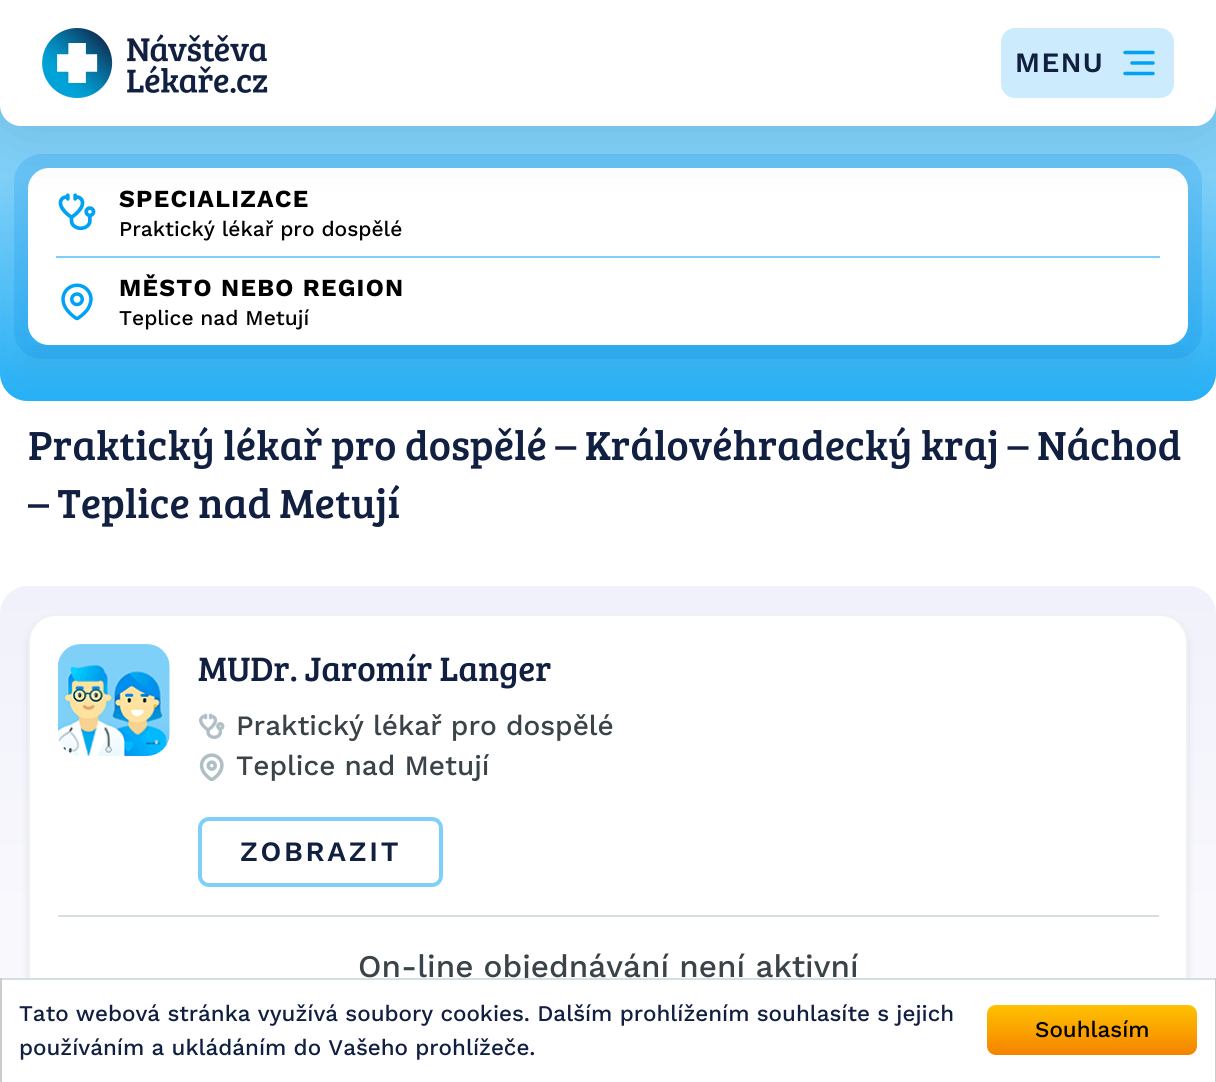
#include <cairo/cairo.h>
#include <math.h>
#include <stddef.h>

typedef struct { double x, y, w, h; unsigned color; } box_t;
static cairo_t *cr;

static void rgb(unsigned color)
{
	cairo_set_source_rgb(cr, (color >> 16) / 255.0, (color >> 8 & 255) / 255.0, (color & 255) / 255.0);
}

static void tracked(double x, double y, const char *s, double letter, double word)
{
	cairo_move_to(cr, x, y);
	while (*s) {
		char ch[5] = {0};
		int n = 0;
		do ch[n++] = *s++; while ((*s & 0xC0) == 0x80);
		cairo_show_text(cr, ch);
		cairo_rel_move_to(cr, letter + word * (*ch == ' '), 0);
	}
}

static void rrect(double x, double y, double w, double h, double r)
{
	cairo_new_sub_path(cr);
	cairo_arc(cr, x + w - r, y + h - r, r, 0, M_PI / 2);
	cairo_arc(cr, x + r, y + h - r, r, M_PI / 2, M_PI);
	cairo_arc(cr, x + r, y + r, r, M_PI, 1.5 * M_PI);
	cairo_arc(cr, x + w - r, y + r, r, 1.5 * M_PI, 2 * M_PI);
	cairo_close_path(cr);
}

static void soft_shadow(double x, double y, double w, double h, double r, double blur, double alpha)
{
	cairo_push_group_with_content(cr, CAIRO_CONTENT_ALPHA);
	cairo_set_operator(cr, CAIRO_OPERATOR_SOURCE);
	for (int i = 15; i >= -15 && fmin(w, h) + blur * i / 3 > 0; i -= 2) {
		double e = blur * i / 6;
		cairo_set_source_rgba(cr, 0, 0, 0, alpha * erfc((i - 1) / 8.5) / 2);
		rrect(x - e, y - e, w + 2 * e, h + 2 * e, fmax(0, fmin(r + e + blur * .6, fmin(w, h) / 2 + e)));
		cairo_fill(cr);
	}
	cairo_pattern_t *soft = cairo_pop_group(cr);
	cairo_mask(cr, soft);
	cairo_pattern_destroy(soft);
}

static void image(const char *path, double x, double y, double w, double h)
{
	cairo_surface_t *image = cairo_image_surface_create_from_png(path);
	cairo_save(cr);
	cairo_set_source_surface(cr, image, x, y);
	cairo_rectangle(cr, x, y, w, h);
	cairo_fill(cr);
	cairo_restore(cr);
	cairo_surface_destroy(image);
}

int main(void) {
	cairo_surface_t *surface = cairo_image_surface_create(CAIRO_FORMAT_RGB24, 1216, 1082);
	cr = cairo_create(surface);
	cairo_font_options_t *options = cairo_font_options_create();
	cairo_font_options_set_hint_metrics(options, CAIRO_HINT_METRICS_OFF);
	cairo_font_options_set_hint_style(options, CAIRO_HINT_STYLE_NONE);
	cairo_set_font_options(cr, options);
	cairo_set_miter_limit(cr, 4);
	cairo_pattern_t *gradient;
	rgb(0xffffff);
	cairo_paint(cr);
	rgb(0x7fd0f9);
	cairo_new_path(cr);
	cairo_move_to(cr, 0, 0);
	cairo_line_to(cr, 1216, 0);
	cairo_line_to(cr, 1216, 373);
	cairo_curve_to(cr, 1216, 388.5, 1203.5, 401, 1188, 401);
	cairo_line_to(cr, 28, 401);
	cairo_curve_to(cr, 12.5, 401, 0, 388.5, 0, 373);
	cairo_close_path(cr);
	cairo_fill(cr);
	gradient = cairo_pattern_create_linear(608, 0, 608, 401);
	cairo_pattern_add_color_stop_rgba(gradient, 0.44, 0, 0.635, 0.957, 0);
	cairo_pattern_add_color_stop_rgba(gradient, 1, 0, 0.635, 0.957, 0.7);
	cairo_set_source(cr, gradient);
	cairo_pattern_destroy(gradient);
	cairo_new_path(cr);
	cairo_move_to(cr, 0, 0);
	cairo_line_to(cr, 1216, 0);
	cairo_line_to(cr, 1216, 373);
	cairo_curve_to(cr, 1216, 388.5, 1203.5, 401, 1188, 401);
	cairo_line_to(cr, 28, 401);
	cairo_curve_to(cr, 12.5, 401, 0, 388.5, 0, 373);
	cairo_close_path(cr);
	cairo_fill(cr);
	cairo_save(cr);
	cairo_set_fill_rule(cr, CAIRO_FILL_RULE_EVEN_ODD);
	cairo_new_path(cr);
	cairo_move_to(cr, 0, 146);
	cairo_line_to(cr, 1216, 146);
	cairo_line_to(cr, 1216, 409);
	cairo_line_to(cr, 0, 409);
	cairo_close_path(cr);
	cairo_move_to(cr, 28, 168);
	cairo_line_to(cr, 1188, 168);
	cairo_line_to(cr, 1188, 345);
	cairo_line_to(cr, 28, 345);
	cairo_close_path(cr);
	cairo_clip(cr);
	rgb(0x616f76);
	soft_shadow(28, 189, 1160, 177, 0, 14, 0.1);
	cairo_restore(cr);
	cairo_set_source_rgba(cr, 0, 0.561, 0.925, 0.2);
	rrect(14, 154, 1188, 205, 28);
	cairo_fill(cr);
	rgb(0xffffff);
	rrect(28, 168, 1160, 177, 21);
	cairo_fill(cr);
	image("img/3.png", 58, 193, 38, 38);
	rgb(0x21272b);
	soft_shadow(0, 0, 1216, 126, 21, 35, 0.15);
	rgb(0xffffff);
	cairo_new_path(cr);
	cairo_move_to(cr, 0, 0);
	cairo_line_to(cr, 1216, 0);
	cairo_line_to(cr, 1216, 105);
	cairo_curve_to(cr, 1216, 116.5, 1206.5, 126, 1195, 126);
	cairo_line_to(cr, 21, 126);
	cairo_curve_to(cr, 9.5, 126, 0, 116.5, 0, 105);
	cairo_close_path(cr);
	cairo_fill(cr);
	image("img/1.png", 42, 28, 226, 70);
	rgb(0xccecfd);
	rrect(1001, 28, 173, 70, 14);
	cairo_fill(cr);
	image("img/2.png", 1123, 50, 32, 26);
	rgb(0x7fd0f9);
	cairo_rectangle(cr, 56, 256, 1104, 2);
	cairo_fill(cr);
	image("img/4.png", 61, 283, 32, 38);
	gradient = cairo_pattern_create_linear(608, 586, 608, 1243);
	cairo_pattern_add_color_stop_rgba(gradient, 0, 0.945, 0.945, 0.984, 1);
	cairo_pattern_add_color_stop_rgba(gradient, 1, 1, 1, 1, 1);
	cairo_set_source(cr, gradient);
	cairo_pattern_destroy(gradient);
	cairo_new_path(cr);
	cairo_move_to(cr, 28, 586);
	cairo_line_to(cr, 1188, 586);
	cairo_curve_to(cr, 1203.5, 586, 1216, 598.5, 1216, 614);
	cairo_line_to(cr, 1216, 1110);
	cairo_line_to(cr, 0, 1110);
	cairo_line_to(cr, 0, 614);
	cairo_curve_to(cr, 0, 598.5, 12.5, 586, 28, 586);
	cairo_close_path(cr);
	cairo_fill(cr);
	rgb(0x21272b);
	soft_shadow(28, 618, 1160, 402, 28, 3.5, 0.1);
	rgb(0xffffff);
	rrect(29, 615, 1158, 401, 27);
	cairo_fill_preserve(cr);
	rgb(0xeff2f3);
	cairo_stroke(cr);
	image("img/5.png", 57, 644, 113, 112);
	image("img/6.png", 199, 713, 26, 26);
	image("img/7.png", 199, 753, 25, 28);
	rrect(200, 819, 241, 66, 9);
	rgb(0x7fd0f9);
	cairo_set_line_width(cr, 4);
	cairo_stroke(cr);
	rgb(0xd7dee2);
	cairo_rectangle(cr, 58, 915, 1101, 2);
	cairo_fill(cr);
	cairo_select_font_face(cr, "Work Sans SemiBold", CAIRO_FONT_SLANT_NORMAL, CAIRO_FONT_WEIGHT_NORMAL);
	cairo_set_font_size(cr, 28);
	rgb(0x111f41);
	tracked(1015, 72, "MENU", 1.5, 0);
	cairo_select_font_face(cr, "Work Sans", CAIRO_FONT_SLANT_NORMAL, CAIRO_FONT_WEIGHT_BOLD);
	cairo_set_font_size(cr, 24.5);
	rgb(0x000000);
	tracked(119, 207, "SPECIALIZACE", 1.25, 0);
	cairo_select_font_face(cr, "Work Sans Medium", CAIRO_FONT_SLANT_NORMAL, CAIRO_FONT_WEIGHT_NORMAL);
	cairo_set_font_size(cr, 21);
	cairo_move_to(cr, 119, 236);
	cairo_show_text(cr, "Praktický lékař pro dospělé");
	cairo_select_font_face(cr, "Work Sans", CAIRO_FONT_SLANT_NORMAL, CAIRO_FONT_WEIGHT_BOLD);
	cairo_set_font_size(cr, 24.5);
	tracked(119, 296, "MĚSTO NEBO REGION", 1.25, 0);
	cairo_select_font_face(cr, "Work Sans Medium", CAIRO_FONT_SLANT_NORMAL, CAIRO_FONT_WEIGHT_NORMAL);
	cairo_set_font_size(cr, 21);
	cairo_move_to(cr, 119, 325);
	cairo_show_text(cr, "Teplice nad Metují");
	cairo_select_font_face(cr, "Bree Serif", CAIRO_FONT_SLANT_NORMAL, CAIRO_FONT_WEIGHT_NORMAL);
	cairo_set_font_size(cr, 42);
	rgb(0x111f41);
	cairo_move_to(cr, 28, 460);
	cairo_show_text(cr, "Praktický lékař pro dospělé – Královéhradecký kraj – Náchod");
	cairo_move_to(cr, 28, 518);
	cairo_show_text(cr, "– Teplice nad Metují");
	cairo_set_font_size(cr, 35);
	cairo_move_to(cr, 198, 681);
	cairo_show_text(cr, "MUDr. Jaromír Langer");
	cairo_select_font_face(cr, "Work Sans Medium", CAIRO_FONT_SLANT_NORMAL, CAIRO_FONT_WEIGHT_NORMAL);
	cairo_set_font_size(cr, 28);
	rgb(0x3a4348);
	cairo_move_to(cr, 236, 735);
	cairo_show_text(cr, "Praktický lékař pro dospělé");
	cairo_move_to(cr, 236, 775);
	cairo_show_text(cr, "Teplice nad Metují");
	cairo_select_font_face(cr, "Work Sans SemiBold", CAIRO_FONT_SLANT_NORMAL, CAIRO_FONT_WEIGHT_NORMAL);
	rgb(0x111f41);
	tracked(240, 861, "ZOBRAZIT", 2.75, 0);
	cairo_select_font_face(cr, "Work Sans Medium", CAIRO_FONT_SLANT_NORMAL, CAIRO_FONT_WEIGHT_NORMAL);
	cairo_set_font_size(cr, 31.5);
	rgb(0x3a4348);
	cairo_move_to(cr, 358, 977);
	cairo_show_text(cr, "On-line objednávání není aktivní");
	{
		static const box_t items[] = {
			{2, 980, 1213, 102, 0xffffff},
			{0, 978, 1216, 2, 0xd7dee2},
			{1215, 978, 1, 104, 0xcccccc},
			{0, 978, 2, 104, 0xcccccc},
		};
		for (size_t i = 0; i < sizeof items / sizeof *items; i++) {
			rgb(items[i].color);
			cairo_rectangle(cr, items[i].x, items[i].y, items[i].w, items[i].h);
			cairo_fill(cr);
		}
	}
	cairo_set_font_size(cr, 22.4);
	rgb(0x111f41);
	cairo_move_to(cr, 19, 1021);
	cairo_show_text(cr, "Tato webová stránka využívá soubory cookies. Dalším prohlížením souhlasíte s jejich");
	cairo_move_to(cr, 19, 1055);
	cairo_show_text(cr, "používáním a ukládáním do Vašeho prohlížeče.");
	gradient = cairo_pattern_create_linear(1092, 1005, 1092, 1055);
	cairo_pattern_add_color_stop_rgba(gradient, 0, 1, 0.761, 0, 1);
	cairo_pattern_add_color_stop_rgba(gradient, 1, 0.957, 0.514, 0, 1);
	cairo_set_source(cr, gradient);
	cairo_pattern_destroy(gradient);
	rrect(987, 1005, 210, 50, 9);
	cairo_fill(cr);
	rgb(0x000000);
	cairo_move_to(cr, 1035, 1037);
	cairo_show_text(cr, "Souhlasím");
	cairo_surface_write_to_png(surface, "page.png");
	cairo_font_options_destroy(options);
	cairo_destroy(cr);
	cairo_surface_destroy(surface);
	return 0;
}
